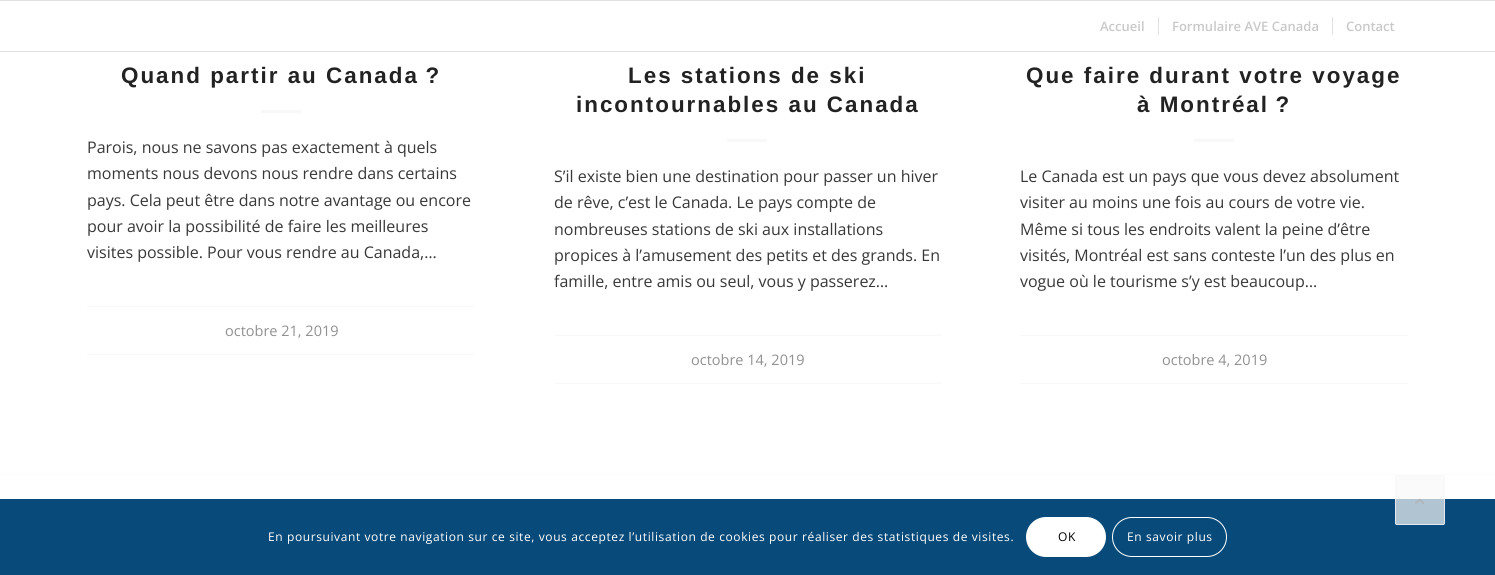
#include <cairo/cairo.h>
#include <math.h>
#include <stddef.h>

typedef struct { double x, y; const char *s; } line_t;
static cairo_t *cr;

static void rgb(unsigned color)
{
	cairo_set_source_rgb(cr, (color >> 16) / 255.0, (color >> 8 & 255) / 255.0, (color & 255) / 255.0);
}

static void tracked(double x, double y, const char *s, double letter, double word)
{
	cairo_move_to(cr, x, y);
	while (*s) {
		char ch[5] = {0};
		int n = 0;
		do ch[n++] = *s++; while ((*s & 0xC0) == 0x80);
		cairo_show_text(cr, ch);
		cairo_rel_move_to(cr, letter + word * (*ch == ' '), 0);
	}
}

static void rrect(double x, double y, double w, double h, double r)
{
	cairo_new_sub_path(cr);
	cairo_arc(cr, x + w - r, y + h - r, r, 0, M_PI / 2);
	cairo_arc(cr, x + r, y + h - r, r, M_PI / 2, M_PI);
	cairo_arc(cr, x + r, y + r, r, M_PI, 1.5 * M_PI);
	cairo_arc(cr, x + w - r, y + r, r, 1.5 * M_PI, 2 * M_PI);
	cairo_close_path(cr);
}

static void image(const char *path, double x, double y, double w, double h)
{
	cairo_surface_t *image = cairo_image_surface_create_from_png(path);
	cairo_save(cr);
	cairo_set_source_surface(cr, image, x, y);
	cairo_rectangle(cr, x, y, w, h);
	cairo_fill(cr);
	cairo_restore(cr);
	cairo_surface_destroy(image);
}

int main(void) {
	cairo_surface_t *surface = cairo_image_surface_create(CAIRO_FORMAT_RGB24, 1495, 575);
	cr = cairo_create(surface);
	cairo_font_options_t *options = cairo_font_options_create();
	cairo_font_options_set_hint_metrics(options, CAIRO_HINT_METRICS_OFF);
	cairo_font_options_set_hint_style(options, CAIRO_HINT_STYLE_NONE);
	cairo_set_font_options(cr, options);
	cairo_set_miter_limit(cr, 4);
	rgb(0xffffff);
	cairo_paint(cr);
	rgb(0xf8f8f8);
	rrect(87, -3, 388, 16, 3);
	cairo_fill(cr);
	rrect(554, -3, 387, 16, 3);
	cairo_fill(cr);
	rrect(1020, -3, 388, 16, 3);
	cairo_fill(cr);
	cairo_set_source_rgba(cr, 1, 1, 1, 0.95);
	cairo_rectangle(cr, 87, 1, 1321, 12);
	cairo_fill(cr);
	rgb(0xe1e1e1);
	cairo_rectangle(cr, 0, 0, 1495, 1);
	cairo_fill(cr);
	cairo_rectangle(cr, 0, 51, 1495, 1);
	cairo_fill(cr);
	cairo_rectangle(cr, 1158, 17, 1, 18);
	cairo_fill(cr);
	cairo_rectangle(cr, 1332, 17, 1, 18);
	cairo_fill(cr);
	rgb(0xf8f8f8);
	cairo_rectangle(cr, 261, 110, 40, 3);
	cairo_fill(cr);
	cairo_rectangle(cr, 87, 306, 388, 1);
	cairo_fill(cr);
	cairo_rectangle(cr, 87, 354, 388, 1);
	cairo_fill(cr);
	cairo_rectangle(cr, 727, 139, 40, 3);
	cairo_fill(cr);
	cairo_rectangle(cr, 554, 335, 387, 1);
	cairo_fill(cr);
	cairo_rectangle(cr, 554, 383, 387, 1);
	cairo_fill(cr);
	cairo_rectangle(cr, 1194, 139, 40, 3);
	cairo_fill(cr);
	cairo_rectangle(cr, 1020, 335, 388, 1);
	cairo_fill(cr);
	cairo_rectangle(cr, 1020, 383, 388, 1);
	cairo_fill(cr);
	rgb(0xfcfcfc);
	cairo_rectangle(cr, 0, 474, 1495, 1);
	cairo_fill(cr);
	rgb(0x084a79);
	cairo_rectangle(cr, 0, 499, 1495, 76);
	cairo_fill(cr);
	cairo_set_source_rgba(cr, 0.973, 0.973, 0.973, 0.7);
	rrect(1395, 475, 50, 50, 2);
	cairo_fill(cr);
	rrect(1395.5, 475.5, 49, 49, 1.5);
	cairo_set_line_width(cr, 1);
	cairo_stroke(cr);
	image("img/1.png", 1415, 498, 9, 6);
	rgb(0xffffff);
	rrect(1026, 517, 80, 40, 20);
	cairo_fill(cr);
	rrect(1112.5, 517.5, 114, 39, 19.5);
	cairo_stroke(cr);
	cairo_select_font_face(cr, "Open Sans SemiBold", CAIRO_FONT_SLANT_NORMAL, CAIRO_FONT_WEIGHT_NORMAL);
	cairo_set_font_size(cr, 13);
	rgb(0xc9c9c9);
	{
		static const line_t items[] = {
			{1100, 31, "Accueil"},
			{1172, 31, "Formulaire AVE Canada"},
			{1346, 31, "Contact"},
		};
		for (size_t i = 0; i < sizeof items / sizeof *items; i++) {
			cairo_move_to(cr, items[i].x, items[i].y);
			cairo_show_text(cr, items[i].s);
		}
	}
	cairo_select_font_face(cr, "Liberation Sans", CAIRO_FONT_SLANT_NORMAL, CAIRO_FONT_WEIGHT_BOLD);
	cairo_set_font_size(cr, 22.4);
	rgb(0x222222);
	tracked(121, 83, "Quand partir au Canada ?", 2, 0);
	cairo_select_font_face(cr, "Open Sans", CAIRO_FONT_SLANT_NORMAL, CAIRO_FONT_WEIGHT_NORMAL);
	cairo_set_font_size(cr, 16);
	rgb(0x383838);
	{
		static const line_t items[] = {
			{87, 153, "Parois, nous ne savons pas exactement à quels"},
			{87, 179, "moments nous devons nous rendre dans certains"},
			{87, 206, "pays. Cela peut être dans notre avantage ou encore"},
			{87, 232, "pour avoir la possibilité de faire les meilleures"},
			{87, 258, "visites possible. Pour vous rendre au Canada,…"},
		};
		for (size_t i = 0; i < sizeof items / sizeof *items; i++) {
			cairo_move_to(cr, items[i].x, items[i].y);
			cairo_show_text(cr, items[i].s);
		}
	}
	cairo_set_font_size(cr, 14.5);
	rgb(0x919191);
	cairo_move_to(cr, 225, 336);
	cairo_show_text(cr, "octobre 21, 2019");
	cairo_select_font_face(cr, "Liberation Sans", CAIRO_FONT_SLANT_NORMAL, CAIRO_FONT_WEIGHT_BOLD);
	cairo_set_font_size(cr, 22.4);
	rgb(0x222222);
	tracked(628, 83, "Les stations de ski", 2, 0);
	tracked(576, 112, "incontournables au Canada", 2, 0);
	cairo_select_font_face(cr, "Open Sans", CAIRO_FONT_SLANT_NORMAL, CAIRO_FONT_WEIGHT_NORMAL);
	cairo_set_font_size(cr, 16);
	rgb(0x383838);
	{
		static const line_t items[] = {
			{554, 182, "S’il existe bien une destination pour passer un hiver"},
			{554, 208, "de rêve, c’est le Canada. Le pays compte de"},
			{554, 235, "nombreuses stations de ski aux installations"},
			{554, 261, "propices à l’amusement des petits et des grands. En"},
			{554, 287, "famille, entre amis ou seul, vous y passerez…"},
		};
		for (size_t i = 0; i < sizeof items / sizeof *items; i++) {
			cairo_move_to(cr, items[i].x, items[i].y);
			cairo_show_text(cr, items[i].s);
		}
	}
	cairo_set_font_size(cr, 14.5);
	rgb(0x919191);
	cairo_move_to(cr, 691, 365);
	cairo_show_text(cr, "octobre 14, 2019");
	cairo_select_font_face(cr, "Liberation Sans", CAIRO_FONT_SLANT_NORMAL, CAIRO_FONT_WEIGHT_BOLD);
	cairo_set_font_size(cr, 22.4);
	rgb(0x222222);
	tracked(1026, 83, "Que faire durant votre voyage", 2, 0);
	tracked(1137, 112, "à Montréal ?", 2, 0);
	cairo_select_font_face(cr, "Open Sans", CAIRO_FONT_SLANT_NORMAL, CAIRO_FONT_WEIGHT_NORMAL);
	cairo_set_font_size(cr, 16);
	rgb(0x383838);
	{
		static const line_t items[] = {
			{1020, 182, "Le Canada est un pays que vous devez absolument"},
			{1020, 208, "visiter au moins une fois au cours de votre vie."},
			{1020, 235, "Même si tous les endroits valent la peine d’être"},
			{1020, 261, "visités, Montréal est sans conteste l’un des plus en"},
			{1020, 287, "vogue où le tourisme s’y est beaucoup…"},
		};
		for (size_t i = 0; i < sizeof items / sizeof *items; i++) {
			cairo_move_to(cr, items[i].x, items[i].y);
			cairo_show_text(cr, items[i].s);
		}
	}
	cairo_set_font_size(cr, 14.5);
	rgb(0x919191);
	cairo_move_to(cr, 1162, 365);
	cairo_show_text(cr, "octobre 4, 2019");
	cairo_set_font_size(cr, 12);
	rgb(0xffffff);
	tracked(268, 541, "En poursuivant votre navigation sur ce site, vous acceptez l’utilisation de cookies pour réaliser des statistiques de visites.", 0.6, 0);
	rgb(0x000000);
	tracked(1058, 541, "OK", 0.6, 0);
	rgb(0xffffff);
	tracked(1127, 541, "En savoir plus", 0.6, 0);
	cairo_surface_write_to_png(surface, "page.png");
	cairo_font_options_destroy(options);
	cairo_destroy(cr);
	cairo_surface_destroy(surface);
	return 0;
}
